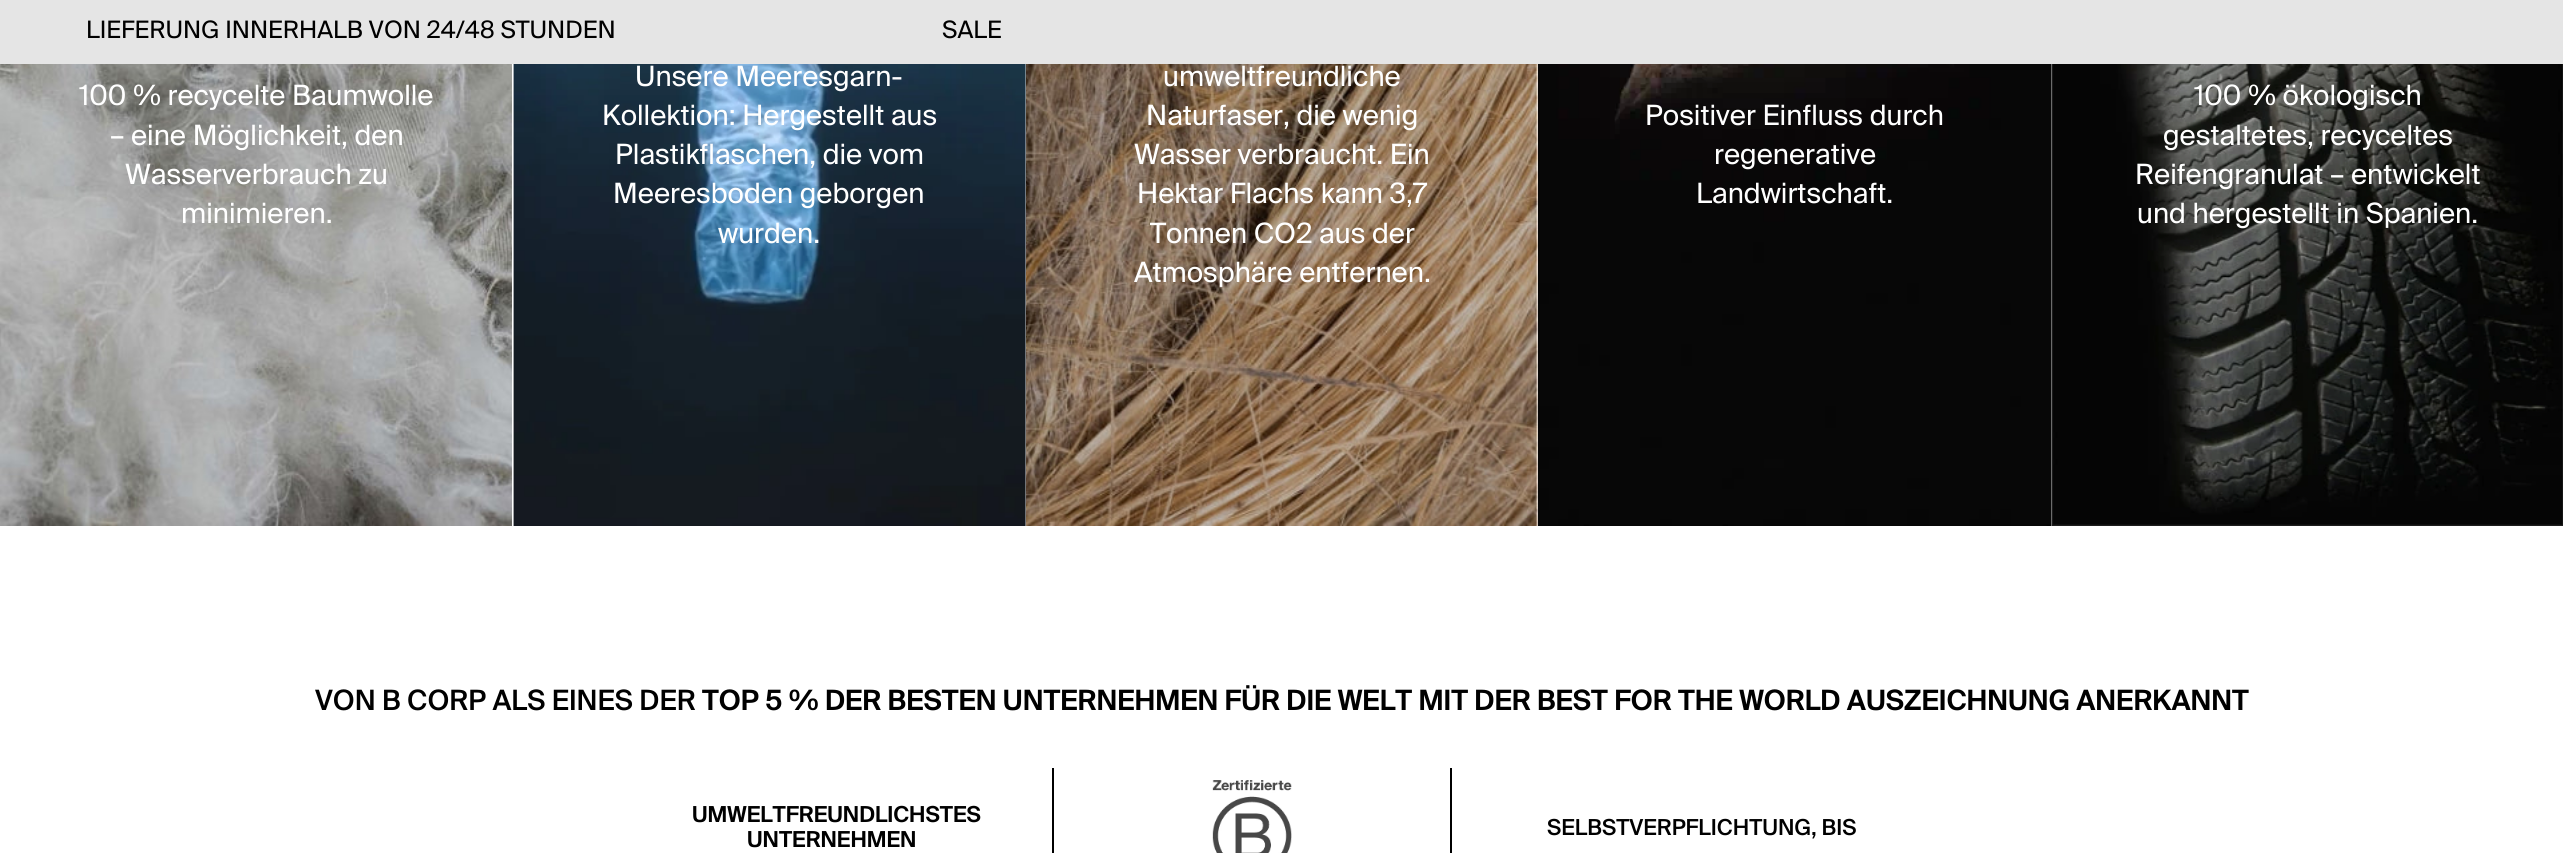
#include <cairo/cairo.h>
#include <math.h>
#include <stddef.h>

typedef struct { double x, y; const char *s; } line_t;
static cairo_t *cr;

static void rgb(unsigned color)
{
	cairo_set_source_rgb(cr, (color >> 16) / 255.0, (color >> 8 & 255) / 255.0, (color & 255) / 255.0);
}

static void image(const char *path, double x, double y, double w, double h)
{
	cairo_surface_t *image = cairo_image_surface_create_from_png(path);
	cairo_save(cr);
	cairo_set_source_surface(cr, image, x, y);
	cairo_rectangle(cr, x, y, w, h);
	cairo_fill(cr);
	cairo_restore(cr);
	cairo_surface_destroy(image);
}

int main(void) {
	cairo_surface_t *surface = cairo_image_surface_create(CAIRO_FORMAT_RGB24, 2563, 853);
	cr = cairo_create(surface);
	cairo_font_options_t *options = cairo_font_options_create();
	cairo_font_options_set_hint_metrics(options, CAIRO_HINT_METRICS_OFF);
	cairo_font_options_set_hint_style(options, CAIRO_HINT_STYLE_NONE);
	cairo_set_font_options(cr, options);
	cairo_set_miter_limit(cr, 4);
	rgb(0xffffff);
	cairo_paint(cr);
	rgb(0xe5e5e5);
	cairo_rectangle(cr, 0, 0, 2563, 64);
	cairo_fill(cr);
	image("img/1.png", 0, 64, 512, 462);
	image("img/2.png", 513, 64, 513, 462);
	image("img/3.png", 1026, 64, 512, 462);
	image("img/4.png", 1538, 64, 514, 462);
	image("img/5.png", 2052, 64, 511, 462);
	rgb(0x000000);
	cairo_rectangle(cr, 1052, 768, 2, 85);
	cairo_fill(cr);
	image("img/6.png", 1212, 780, 80, 73);
	cairo_rectangle(cr, 1450, 768, 2, 85);
	cairo_fill(cr);
	cairo_select_font_face(cr, "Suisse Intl", CAIRO_FONT_SLANT_NORMAL, CAIRO_FONT_WEIGHT_NORMAL);
	cairo_set_font_size(cr, 24);
	cairo_move_to(cr, 86, 38);
	cairo_show_text(cr, "LIEFERUNG INNERHALB VON 24/48 STUNDEN");
	cairo_move_to(cr, 942, 38);
	cairo_show_text(cr, "SALE");
	cairo_set_font_size(cr, 28);
	rgb(0xffffff);
	{
		static const line_t items[] = {
			{79, 105, "100 % recycelte Baumwolle"},
			{110, 145, "– eine Möglichkeit, den"},
			{125, 184, "Wasserverbrauch zu"},
			{181, 223, "minimieren."},
			{635, 86, "Unsere Meeresgarn-"},
			{602, 125, "Kollektion: Hergestellt aus"},
			{615, 164, "Plastikflaschen, die vom"},
			{613, 203, "Meeresboden geborgen"},
			{718, 243, "wurden."},
			{1163, 86, "umweltfreundliche"},
			{1146, 125, "Naturfaser, die wenig"},
			{1134, 164, "Wasser verbraucht. Ein"},
			{1137, 203, "Hektar Flachs kann 3,7"},
			{1150, 243, "Tonnen CO2 aus der"},
			{1134, 282, "Atmosphäre entfernen."},
			{1645, 125, "Positiver Einfluss durch"},
			{1714, 164, "regenerative"},
			{1696, 203, "Landwirtschaft."},
			{2194, 105, "100 % ökologisch"},
			{2163, 145, "gestaltetes, recyceltes"},
			{2135, 184, "Reifengranulat – entwickelt"},
			{2137, 223, "und hergestellt in Spanien."},
		};
		for (size_t i = 0; i < sizeof items / sizeof *items; i++) {
			cairo_move_to(cr, items[i].x, items[i].y);
			cairo_show_text(cr, items[i].s);
		}
	}
	cairo_select_font_face(cr, "Suisse Intl Medium", CAIRO_FONT_SLANT_NORMAL, CAIRO_FONT_WEIGHT_NORMAL);
	rgb(0x000000);
	cairo_move_to(cr, 315, 710);
	cairo_show_text(cr, "VON B CORP ALS EINES DER");
	cairo_select_font_face(cr, "Suisse Intl SemiBold", CAIRO_FONT_SLANT_NORMAL, CAIRO_FONT_WEIGHT_NORMAL);
	cairo_move_to(cr, 702, 710);
	cairo_show_text(cr, "TOP 5 % DER BESTEN UNTERNEHMEN FÜR DIE WELT MIT DER BEST FOR THE WORLD AUSZEICHNUNG ANERKANNT");
	cairo_set_font_size(cr, 22);
	cairo_move_to(cr, 692, 822);
	cairo_show_text(cr, "UMWELTFREUNDLICHSTES");
	cairo_move_to(cr, 747, 847);
	cairo_show_text(cr, "UNTERNEHMEN");
	cairo_select_font_face(cr, "Suisse Intl Medium", CAIRO_FONT_SLANT_NORMAL, CAIRO_FONT_WEIGHT_NORMAL);
	cairo_move_to(cr, 1547, 835);
	cairo_show_text(cr, "SELBSTVERPFLICHTUNG, BIS");
	cairo_surface_write_to_png(surface, "page.png");
	cairo_font_options_destroy(options);
	cairo_destroy(cr);
	cairo_surface_destroy(surface);
	return 0;
}
